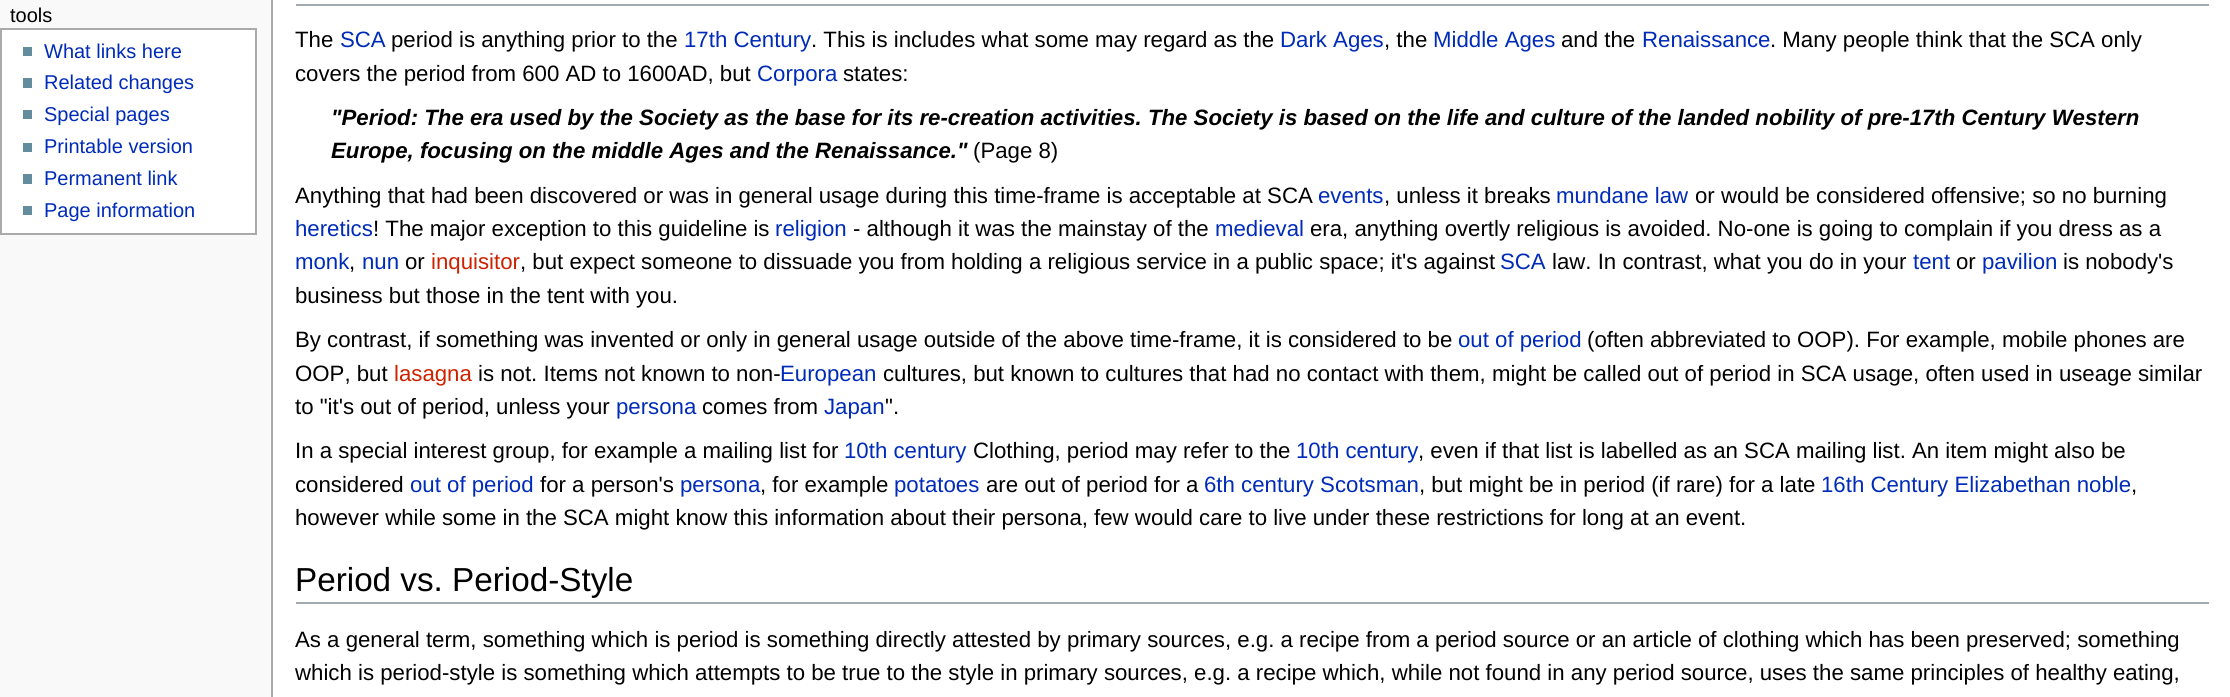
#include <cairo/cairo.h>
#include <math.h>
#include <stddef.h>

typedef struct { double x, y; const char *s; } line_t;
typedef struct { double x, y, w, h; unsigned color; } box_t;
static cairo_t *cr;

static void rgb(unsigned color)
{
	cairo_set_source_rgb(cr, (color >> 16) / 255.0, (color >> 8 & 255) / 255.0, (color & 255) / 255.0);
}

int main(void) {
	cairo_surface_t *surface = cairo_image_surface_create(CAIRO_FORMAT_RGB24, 2230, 697);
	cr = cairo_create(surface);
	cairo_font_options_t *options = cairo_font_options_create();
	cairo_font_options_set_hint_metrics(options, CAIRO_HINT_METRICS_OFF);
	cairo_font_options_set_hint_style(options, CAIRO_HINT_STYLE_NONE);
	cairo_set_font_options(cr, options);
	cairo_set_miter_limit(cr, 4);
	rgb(0xf9f9f9);
	cairo_paint(cr);
	rgb(0xffffff);
	cairo_rectangle(cr, 1, 29, 255, 205);
	cairo_fill_preserve(cr);
	rgb(0xaaaaaa);
	cairo_stroke(cr);
	{
		static const box_t items[] = {
			{23, 47, 9, 9, 0x638c9c},
			{23, 78, 9, 10, 0x638c9c},
			{23, 110, 9, 9, 0x638c9c},
			{23, 143, 9, 9, 0x638c9c},
			{23, 174, 9, 10, 0x638c9c},
			{23, 206, 9, 9, 0x638c9c},
			{273, 0, 1957, 697, 0xffffff},
			{271, 0, 2, 697, 0xaaaaaa},
			{296, 4, 1913, 2, 0xa2a9b1},
			{296, 602, 1913, 2, 0xa2a9b1},
		};
		for (size_t i = 0; i < sizeof items / sizeof *items; i++) {
			rgb(items[i].color);
			cairo_rectangle(cr, items[i].x, items[i].y, items[i].w, items[i].h);
			cairo_fill(cr);
		}
	}
	cairo_select_font_face(cr, "Liberation Sans", CAIRO_FONT_SLANT_NORMAL, CAIRO_FONT_WEIGHT_NORMAL);
	cairo_set_font_size(cr, 20);
	rgb(0x000000);
	cairo_move_to(cr, 10, 22);
	cairo_show_text(cr, "tools");
	rgb(0x002bb8);
	{
		static const line_t items[] = {
			{44, 58, "What links here"},
			{44, 89, "Related changes"},
			{44, 121, "Special pages"},
			{44, 153, "Printable version"},
			{44, 185, "Permanent link"},
			{44, 217, "Page information"},
		};
		for (size_t i = 0; i < sizeof items / sizeof *items; i++) {
			cairo_move_to(cr, items[i].x, items[i].y);
			cairo_show_text(cr, items[i].s);
		}
	}
	cairo_set_font_size(cr, 22.22);
	rgb(0x000000);
	cairo_move_to(cr, 295, 47);
	cairo_show_text(cr, "The");
	rgb(0x002bb8);
	cairo_move_to(cr, 340, 47);
	cairo_show_text(cr, "SCA");
	rgb(0x000000);
	cairo_move_to(cr, 391, 47);
	cairo_show_text(cr, "period is anything prior to the");
	rgb(0x002bb8);
	cairo_move_to(cr, 684, 47);
	cairo_show_text(cr, "17th Century");
	rgb(0x000000);
	cairo_move_to(cr, 811, 47);
	cairo_show_text(cr, ". This is includes what some may regard as the");
	rgb(0x002bb8);
	cairo_move_to(cr, 1280, 47);
	cairo_show_text(cr, "Dark Ages");
	rgb(0x000000);
	cairo_move_to(cr, 1384, 47);
	cairo_show_text(cr, ", the");
	rgb(0x002bb8);
	cairo_move_to(cr, 1433, 47);
	cairo_show_text(cr, "Middle Ages");
	rgb(0x000000);
	cairo_move_to(cr, 1561, 47);
	cairo_show_text(cr, "and the");
	rgb(0x002bb8);
	cairo_move_to(cr, 1642, 47);
	cairo_show_text(cr, "Renaissance");
	rgb(0x000000);
	cairo_move_to(cr, 1770, 47);
	cairo_show_text(cr, ". Many people think that the SCA only");
	cairo_move_to(cr, 295, 81);
	cairo_show_text(cr, "covers the period from 600 AD to 1600AD, but");
	rgb(0x002bb8);
	cairo_move_to(cr, 757, 81);
	cairo_show_text(cr, "Corpora");
	rgb(0x000000);
	cairo_move_to(cr, 843, 81);
	cairo_show_text(cr, "states:");
	cairo_select_font_face(cr, "Liberation Sans", CAIRO_FONT_SLANT_ITALIC, CAIRO_FONT_WEIGHT_BOLD);
	cairo_move_to(cr, 331, 125);
	cairo_show_text(cr, "\"Period: The era used by the Society as the base for its re-creation activities. The Society is based on the life and culture of the landed nobility of pre-17th Century Western");
	cairo_move_to(cr, 331, 158);
	cairo_show_text(cr, "Europe, focusing on the middle Ages and the Renaissance.\"");
	cairo_select_font_face(cr, "Liberation Sans", CAIRO_FONT_SLANT_NORMAL, CAIRO_FONT_WEIGHT_NORMAL);
	cairo_move_to(cr, 973, 158);
	cairo_show_text(cr, "(Page 8)");
	cairo_move_to(cr, 295, 203);
	cairo_show_text(cr, "Anything that had been discovered or was in general usage during this time-frame is acceptable at SCA");
	rgb(0x002bb8);
	cairo_move_to(cr, 1318, 203);
	cairo_show_text(cr, "events");
	rgb(0x000000);
	cairo_move_to(cr, 1384, 203);
	cairo_show_text(cr, ", unless it breaks");
	rgb(0x002bb8);
	cairo_move_to(cr, 1556, 203);
	cairo_show_text(cr, "mundane law");
	rgb(0x000000);
	cairo_move_to(cr, 1695, 203);
	cairo_show_text(cr, "or would be considered offensive; so no burning");
	rgb(0x002bb8);
	cairo_move_to(cr, 295, 236);
	cairo_show_text(cr, "heretics");
	rgb(0x000000);
	cairo_move_to(cr, 373, 236);
	cairo_show_text(cr, "! The major exception to this guideline is");
	rgb(0x002bb8);
	cairo_move_to(cr, 775, 236);
	cairo_show_text(cr, "religion");
	rgb(0x000000);
	cairo_move_to(cr, 853, 236);
	cairo_show_text(cr, "- although it was the mainstay of the");
	rgb(0x002bb8);
	cairo_move_to(cr, 1215, 236);
	cairo_show_text(cr, "medieval");
	rgb(0x000000);
	cairo_move_to(cr, 1310, 236);
	cairo_show_text(cr, "era, anything overtly religious is avoided. No-one is going to complain if you dress as a");
	rgb(0x002bb8);
	cairo_move_to(cr, 295, 269);
	cairo_show_text(cr, "monk");
	rgb(0x000000);
	cairo_move_to(cr, 349, 269);
	cairo_show_text(cr, ",");
	rgb(0x002bb8);
	cairo_move_to(cr, 362, 269);
	cairo_show_text(cr, "nun");
	rgb(0x000000);
	cairo_move_to(cr, 405, 269);
	cairo_show_text(cr, "or");
	rgb(0xcc2200);
	cairo_move_to(cr, 431, 269);
	cairo_show_text(cr, "inquisitor");
	rgb(0x000000);
	cairo_move_to(cr, 520, 269);
	cairo_show_text(cr, ", but expect someone to dissuade you from holding a religious service in a public space; it's against");
	rgb(0x002bb8);
	cairo_move_to(cr, 1500, 269);
	cairo_show_text(cr, "SCA");
	rgb(0x000000);
	cairo_move_to(cr, 1552, 269);
	cairo_show_text(cr, "law. In contrast, what you do in your");
	rgb(0x002bb8);
	cairo_move_to(cr, 1913, 269);
	cairo_show_text(cr, "tent");
	rgb(0x000000);
	cairo_move_to(cr, 1956, 269);
	cairo_show_text(cr, "or");
	rgb(0x002bb8);
	cairo_move_to(cr, 1982, 269);
	cairo_show_text(cr, "pavilion");
	rgb(0x000000);
	{
		static const line_t items[] = {
			{2063, 269, "is nobody's"},
			{295, 303, "business but those in the tent with you."},
			{295, 347, "By contrast, if something was invented or only in general usage outside of the above time-frame, it is considered to be"},
		};
		for (size_t i = 0; i < sizeof items / sizeof *items; i++) {
			cairo_move_to(cr, items[i].x, items[i].y);
			cairo_show_text(cr, items[i].s);
		}
	}
	rgb(0x002bb8);
	cairo_move_to(cr, 1458, 347);
	cairo_show_text(cr, "out of period");
	rgb(0x000000);
	cairo_move_to(cr, 1587, 347);
	cairo_show_text(cr, "(often abbreviated to OOP). For example, mobile phones are");
	cairo_move_to(cr, 295, 381);
	cairo_show_text(cr, "OOP, but");
	rgb(0xcc2200);
	cairo_move_to(cr, 394, 381);
	cairo_show_text(cr, "lasagna");
	rgb(0x000000);
	cairo_move_to(cr, 478, 381);
	cairo_show_text(cr, "is not. Items not known to non-");
	rgb(0x002bb8);
	cairo_move_to(cr, 780, 381);
	cairo_show_text(cr, "European");
	rgb(0x000000);
	cairo_move_to(cr, 883, 381);
	cairo_show_text(cr, "cultures, but known to cultures that had no contact with them, might be called out of period in SCA usage, often used in useage similar");
	cairo_move_to(cr, 295, 414);
	cairo_show_text(cr, "to \"it's out of period, unless your");
	rgb(0x002bb8);
	cairo_move_to(cr, 616, 414);
	cairo_show_text(cr, "persona");
	rgb(0x000000);
	cairo_move_to(cr, 702, 414);
	cairo_show_text(cr, "comes from");
	rgb(0x002bb8);
	cairo_move_to(cr, 824, 414);
	cairo_show_text(cr, "Japan");
	rgb(0x000000);
	cairo_move_to(cr, 885, 414);
	cairo_show_text(cr, "\".");
	cairo_move_to(cr, 295, 458);
	cairo_show_text(cr, "In a special interest group, for example a mailing list for");
	rgb(0x002bb8);
	cairo_move_to(cr, 844, 458);
	cairo_show_text(cr, "10th century");
	rgb(0x000000);
	cairo_move_to(cr, 973, 458);
	cairo_show_text(cr, "Clothing, period may refer to the");
	rgb(0x002bb8);
	cairo_move_to(cr, 1296, 458);
	cairo_show_text(cr, "10th century");
	rgb(0x000000);
	{
		static const line_t items[] = {
			{1418, 458, ", even if that list is labelled as an SCA mailing list."},
			{1912, 458, "An item might also be"},
			{295, 492, "considered"},
		};
		for (size_t i = 0; i < sizeof items / sizeof *items; i++) {
			cairo_move_to(cr, items[i].x, items[i].y);
			cairo_show_text(cr, items[i].s);
		}
	}
	rgb(0x002bb8);
	cairo_move_to(cr, 410, 492);
	cairo_show_text(cr, "out of period");
	rgb(0x000000);
	cairo_move_to(cr, 540, 492);
	cairo_show_text(cr, "for a person's");
	rgb(0x002bb8);
	cairo_move_to(cr, 680, 492);
	cairo_show_text(cr, "persona");
	rgb(0x000000);
	cairo_move_to(cr, 760, 492);
	cairo_show_text(cr, ", for example");
	rgb(0x002bb8);
	cairo_move_to(cr, 894, 492);
	cairo_show_text(cr, "potatoes");
	rgb(0x000000);
	cairo_move_to(cr, 986, 492);
	cairo_show_text(cr, "are out of period for a");
	rgb(0x002bb8);
	cairo_move_to(cr, 1204, 492);
	cairo_show_text(cr, "6th century Scotsman");
	rgb(0x000000);
	cairo_move_to(cr, 1419, 492);
	cairo_show_text(cr, ", but might be in period (if rare) for a late");
	rgb(0x002bb8);
	cairo_move_to(cr, 1821, 492);
	cairo_show_text(cr, "16th Century Elizabethan noble");
	rgb(0x000000);
	cairo_move_to(cr, 2131, 492);
	cairo_show_text(cr, ",");
	cairo_move_to(cr, 295, 525);
	cairo_show_text(cr, "however while some in the SCA might know this information about their persona, few would care to live under these restrictions for long at an event.");
	cairo_set_font_size(cr, 33.25);
	cairo_move_to(cr, 295, 591);
	cairo_show_text(cr, "Period vs. Period-Style");
	cairo_set_font_size(cr, 22.22);
	cairo_move_to(cr, 295, 647);
	cairo_show_text(cr, "As a general term, something which is period is something directly attested by primary sources, e.g. a recipe from a period source or an article of clothing which has been preserved; something");
	cairo_move_to(cr, 295, 680);
	cairo_show_text(cr, "which is period-style is something which attempts to be true to the style in primary sources, e.g. a recipe which, while not found in any period source, uses the same principles of healthy eating,");
	cairo_surface_write_to_png(surface, "page.png");
	cairo_font_options_destroy(options);
	cairo_destroy(cr);
	cairo_surface_destroy(surface);
	return 0;
}
